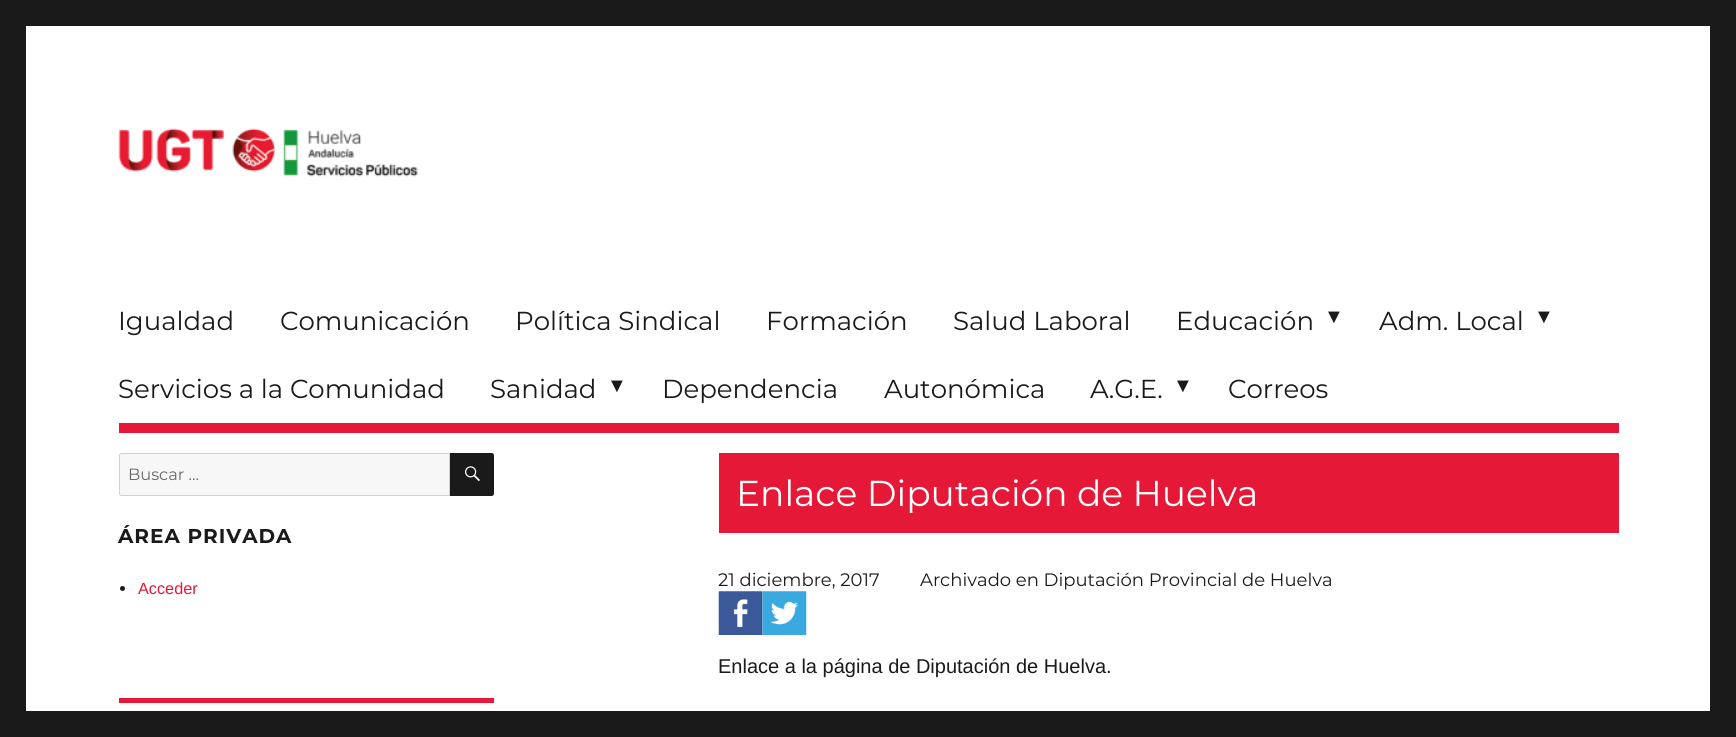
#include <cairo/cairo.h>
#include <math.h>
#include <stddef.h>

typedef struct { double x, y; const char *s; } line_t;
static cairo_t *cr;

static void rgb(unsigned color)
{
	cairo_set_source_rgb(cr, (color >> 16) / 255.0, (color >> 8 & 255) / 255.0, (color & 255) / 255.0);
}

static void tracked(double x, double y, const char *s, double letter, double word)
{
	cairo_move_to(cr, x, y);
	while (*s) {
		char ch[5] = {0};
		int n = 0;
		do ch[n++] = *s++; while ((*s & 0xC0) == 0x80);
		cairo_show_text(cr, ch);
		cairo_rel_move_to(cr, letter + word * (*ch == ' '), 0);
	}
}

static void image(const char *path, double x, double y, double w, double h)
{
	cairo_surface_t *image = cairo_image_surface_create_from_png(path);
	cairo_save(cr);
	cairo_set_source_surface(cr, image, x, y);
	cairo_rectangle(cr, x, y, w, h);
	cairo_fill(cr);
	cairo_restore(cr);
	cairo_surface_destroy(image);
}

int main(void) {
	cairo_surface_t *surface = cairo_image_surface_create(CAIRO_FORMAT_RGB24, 1736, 737);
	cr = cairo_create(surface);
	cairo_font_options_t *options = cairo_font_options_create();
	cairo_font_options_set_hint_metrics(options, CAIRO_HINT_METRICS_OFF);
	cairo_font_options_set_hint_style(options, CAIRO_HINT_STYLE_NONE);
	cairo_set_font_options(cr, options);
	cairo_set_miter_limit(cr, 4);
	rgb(0x1a1a1a);
	cairo_paint(cr);
	rgb(0xffffff);
	cairo_rectangle(cr, 26, 26, 1684, 685);
	cairo_fill(cr);
	image("img/1.png", 118, 128, 300, 49);
	rgb(0xe51837);
	cairo_rectangle(cr, 119, 423, 1500, 10);
	cairo_fill(cr);
	rgb(0xf7f7f7);
	cairo_new_path(cr);
	cairo_move_to(cr, 121.5, 453.5);
	cairo_line_to(cr, 449.5, 453.5);
	cairo_line_to(cr, 449.5, 495.5);
	cairo_line_to(cr, 121.5, 495.5);
	cairo_curve_to(cr, 120.5, 495.5, 119.5, 494.5, 119.5, 493.5);
	cairo_line_to(cr, 119.5, 455.5);
	cairo_curve_to(cr, 119.5, 454.5, 120.5, 453.5, 121.5, 453.5);
	cairo_close_path(cr);
	cairo_fill_preserve(cr);
	rgb(0xd1d1d1);
	cairo_set_line_width(cr, 1);
	cairo_stroke(cr);
	rgb(0x1a1a1a);
	cairo_new_path(cr);
	cairo_move_to(cr, 450, 453);
	cairo_line_to(cr, 491.5, 453);
	cairo_curve_to(cr, 493, 453, 494, 454, 494, 455.5);
	cairo_line_to(cr, 494, 493.5);
	cairo_curve_to(cr, 494, 495, 493, 496, 491.5, 496);
	cairo_line_to(cr, 450, 496);
	cairo_close_path(cr);
	cairo_fill(cr);
	image("img/2.png", 465, 466, 15, 16);
	cairo_arc(cr, 122.5, 588.5, 2.5, 0, 2 * M_PI);
	cairo_fill(cr);
	rgb(0xe51837);
	cairo_rectangle(cr, 119, 698, 375, 5);
	cairo_fill(cr);
	cairo_rectangle(cr, 719, 453, 900, 80);
	cairo_fill(cr);
	image("img/3.png", 718, 591, 45, 44);
	image("img/4.png", 762, 591, 45, 44);
	cairo_select_font_face(cr, "Montserrat", CAIRO_FONT_SLANT_NORMAL, CAIRO_FONT_WEIGHT_NORMAL);
	cairo_set_font_size(cr, 26);
	rgb(0x1a1a1a);
	{
		static const line_t items[] = {
			{118, 330, "Igualdad"},
			{280, 330, "Comunicación"},
			{515, 330, "Política Sindical"},
			{766, 330, "Formación"},
			{953, 330, "Salud Laboral"},
			{1176, 330, "Educación"},
		};
		for (size_t i = 0; i < sizeof items / sizeof *items; i++) {
			cairo_move_to(cr, items[i].x, items[i].y);
			cairo_show_text(cr, items[i].s);
		}
	}
	cairo_select_font_face(cr, "Liberation Serif", CAIRO_FONT_SLANT_NORMAL, CAIRO_FONT_WEIGHT_NORMAL);
	cairo_set_font_size(cr, 20);
	cairo_move_to(cr, 1324, 323);
	cairo_show_text(cr, "▼");
	cairo_select_font_face(cr, "Montserrat", CAIRO_FONT_SLANT_NORMAL, CAIRO_FONT_WEIGHT_NORMAL);
	cairo_set_font_size(cr, 26);
	cairo_move_to(cr, 1379, 330);
	cairo_show_text(cr, "Adm. Local");
	cairo_select_font_face(cr, "Liberation Serif", CAIRO_FONT_SLANT_NORMAL, CAIRO_FONT_WEIGHT_NORMAL);
	cairo_set_font_size(cr, 20);
	cairo_move_to(cr, 1534, 323);
	cairo_show_text(cr, "▼");
	cairo_select_font_face(cr, "Montserrat", CAIRO_FONT_SLANT_NORMAL, CAIRO_FONT_WEIGHT_NORMAL);
	cairo_set_font_size(cr, 26);
	cairo_move_to(cr, 118, 398);
	cairo_show_text(cr, "Servicios a la Comunidad");
	cairo_move_to(cr, 490, 398);
	cairo_show_text(cr, "Sanidad");
	cairo_select_font_face(cr, "Liberation Serif", CAIRO_FONT_SLANT_NORMAL, CAIRO_FONT_WEIGHT_NORMAL);
	cairo_set_font_size(cr, 20);
	cairo_move_to(cr, 607, 392);
	cairo_show_text(cr, "▼");
	cairo_select_font_face(cr, "Montserrat", CAIRO_FONT_SLANT_NORMAL, CAIRO_FONT_WEIGHT_NORMAL);
	cairo_set_font_size(cr, 26);
	{
		static const line_t items[] = {
			{662, 398, "Dependencia"},
			{884, 398, "Autonómica"},
			{1090, 398, "A.G.E."},
		};
		for (size_t i = 0; i < sizeof items / sizeof *items; i++) {
			cairo_move_to(cr, items[i].x, items[i].y);
			cairo_show_text(cr, items[i].s);
		}
	}
	cairo_select_font_face(cr, "Liberation Serif", CAIRO_FONT_SLANT_NORMAL, CAIRO_FONT_WEIGHT_NORMAL);
	cairo_set_font_size(cr, 20);
	cairo_move_to(cr, 1173, 392);
	cairo_show_text(cr, "▼");
	cairo_select_font_face(cr, "Montserrat", CAIRO_FONT_SLANT_NORMAL, CAIRO_FONT_WEIGHT_NORMAL);
	cairo_set_font_size(cr, 26);
	cairo_move_to(cr, 1228, 398);
	cairo_show_text(cr, "Correos");
	cairo_set_font_size(cr, 16.25);
	rgb(0x686868);
	cairo_move_to(cr, 128, 480);
	cairo_show_text(cr, "Buscar …");
	cairo_select_font_face(cr, "Montserrat", CAIRO_FONT_SLANT_NORMAL, CAIRO_FONT_WEIGHT_BOLD);
	cairo_set_font_size(cr, 20);
	rgb(0x1a1a1a);
	tracked(118, 543, "ÁREA PRIVADA", 1, 0);
	cairo_select_font_face(cr, "Liberation Sans", CAIRO_FONT_SLANT_NORMAL, CAIRO_FONT_WEIGHT_NORMAL);
	cairo_set_font_size(cr, 16.25);
	rgb(0xe51837);
	cairo_move_to(cr, 138, 594);
	cairo_show_text(cr, "Acceder");
	cairo_select_font_face(cr, "Montserrat", CAIRO_FONT_SLANT_NORMAL, CAIRO_FONT_WEIGHT_NORMAL);
	cairo_set_font_size(cr, 36);
	rgb(0xffffff);
	cairo_move_to(cr, 736, 506);
	cairo_show_text(cr, "Enlace Diputación de Huelva");
	cairo_set_font_size(cr, 18);
	rgb(0x1a1a1a);
	cairo_move_to(cr, 718, 586);
	cairo_show_text(cr, "21 diciembre, 2017");
	cairo_move_to(cr, 920, 586);
	cairo_show_text(cr, "Archivado en Diputación Provincial de Huelva");
	cairo_select_font_face(cr, "Liberation Sans", CAIRO_FONT_SLANT_NORMAL, CAIRO_FONT_WEIGHT_NORMAL);
	cairo_set_font_size(cr, 20);
	cairo_move_to(cr, 718, 673);
	cairo_show_text(cr, "Enlace a la página de Diputación de Huelva.");
	cairo_surface_write_to_png(surface, "page.png");
	cairo_font_options_destroy(options);
	cairo_destroy(cr);
	cairo_surface_destroy(surface);
	return 0;
}
